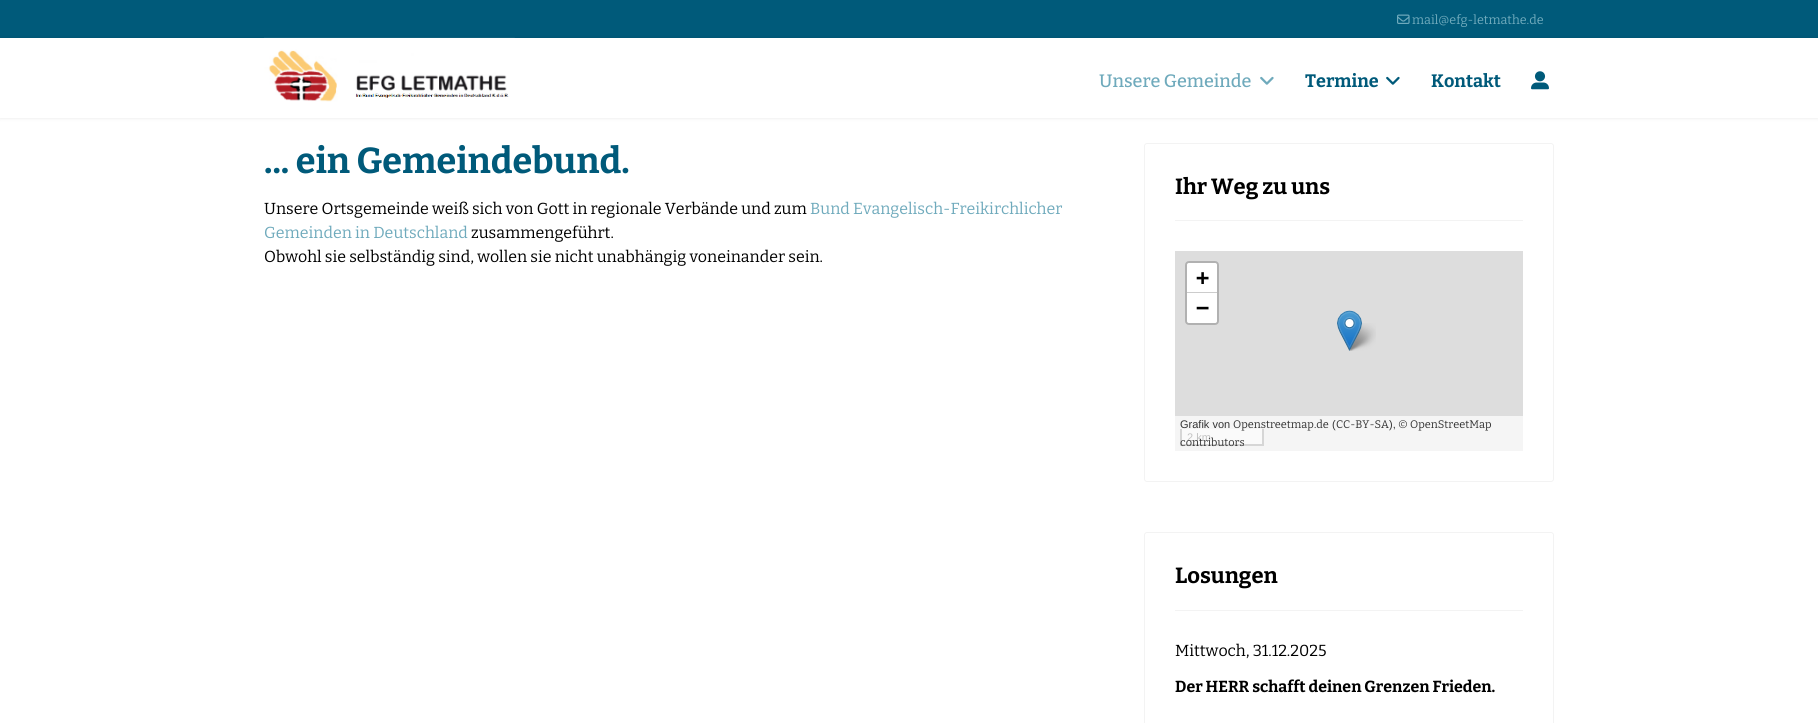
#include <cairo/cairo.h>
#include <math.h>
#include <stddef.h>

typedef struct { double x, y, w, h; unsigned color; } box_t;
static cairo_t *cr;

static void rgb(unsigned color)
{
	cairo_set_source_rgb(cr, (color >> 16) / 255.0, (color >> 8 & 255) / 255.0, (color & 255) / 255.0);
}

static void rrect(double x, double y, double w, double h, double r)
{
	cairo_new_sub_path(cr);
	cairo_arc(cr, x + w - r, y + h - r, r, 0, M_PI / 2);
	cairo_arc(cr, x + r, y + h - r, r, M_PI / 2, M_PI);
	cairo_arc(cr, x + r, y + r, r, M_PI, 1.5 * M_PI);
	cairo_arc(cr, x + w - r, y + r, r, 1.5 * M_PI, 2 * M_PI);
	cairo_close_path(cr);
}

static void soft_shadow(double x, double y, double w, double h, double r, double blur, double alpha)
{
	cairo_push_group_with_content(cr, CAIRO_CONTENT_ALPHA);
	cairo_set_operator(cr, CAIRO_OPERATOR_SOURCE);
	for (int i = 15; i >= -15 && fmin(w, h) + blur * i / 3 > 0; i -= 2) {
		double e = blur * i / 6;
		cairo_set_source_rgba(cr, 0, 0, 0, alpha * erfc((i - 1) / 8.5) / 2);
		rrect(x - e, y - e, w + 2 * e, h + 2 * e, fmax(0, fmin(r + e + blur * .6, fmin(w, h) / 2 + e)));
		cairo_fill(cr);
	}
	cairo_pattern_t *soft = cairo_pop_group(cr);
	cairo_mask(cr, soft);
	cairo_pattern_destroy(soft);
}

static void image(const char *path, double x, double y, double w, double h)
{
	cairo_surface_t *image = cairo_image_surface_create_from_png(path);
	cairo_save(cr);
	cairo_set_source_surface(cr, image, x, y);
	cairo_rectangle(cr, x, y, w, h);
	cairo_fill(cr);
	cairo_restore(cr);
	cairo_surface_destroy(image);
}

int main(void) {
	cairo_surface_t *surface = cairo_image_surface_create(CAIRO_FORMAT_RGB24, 1818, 723);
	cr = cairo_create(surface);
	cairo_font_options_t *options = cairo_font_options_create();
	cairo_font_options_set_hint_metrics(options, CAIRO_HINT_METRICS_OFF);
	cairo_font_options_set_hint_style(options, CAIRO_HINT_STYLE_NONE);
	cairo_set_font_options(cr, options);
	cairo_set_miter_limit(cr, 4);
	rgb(0xffffff);
	cairo_paint(cr);
	rgb(0x005a7a);
	cairo_rectangle(cr, 0, 0, 1818, 38);
	cairo_fill(cr);
	image("img/1.png", 1397, 14, 13, 10);
	cairo_save(cr);
	cairo_set_fill_rule(cr, CAIRO_FILL_RULE_EVEN_ODD);
	cairo_new_path(cr);
	cairo_move_to(cr, 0, 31);
	cairo_line_to(cr, 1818, 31);
	cairo_line_to(cr, 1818, 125);
	cairo_line_to(cr, 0, 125);
	cairo_close_path(cr);
	cairo_move_to(cr, 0, 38);
	cairo_line_to(cr, 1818, 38);
	cairo_line_to(cr, 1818, 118);
	cairo_line_to(cr, 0, 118);
	cairo_close_path(cr);
	cairo_clip(cr);
	rgb(0x000000);
	soft_shadow(0, 38, 1818, 80, 0, 2, 0.1);
	cairo_restore(cr);
	image("img/2.png", 264, 37, 251, 65);
	image("img/3.png", 1260, 76, 14, 9);
	image("img/4.png", 1386, 76, 14, 9);
	image("img/5.png", 1531, 71, 18, 19);
	rrect(1144.5, 143.5, 409, 338, 2.5);
	rgb(0xf3f3f3);
	cairo_set_line_width(cr, 1);
	cairo_stroke(cr);
	{
		static const box_t items[] = {
			{1175, 220, 348, 1, 0xf3f3f3},
			{1175, 251, 348, 165, 0xdddddd},
			{1175, 416, 348, 35, 0xf5f5f5},
		};
		for (size_t i = 0; i < sizeof items / sizeof *items; i++) {
			rgb(items[i].color);
			cairo_rectangle(cr, items[i].x, items[i].y, items[i].w, items[i].h);
			cairo_fill(cr);
		}
	}
	rrect(1186, 262, 32, 62, 3);
	rgb(0xb1b1b1);
	cairo_set_line_width(cr, 2);
	cairo_stroke(cr);
	rgb(0xffffff);
	cairo_new_path(cr);
	cairo_move_to(cr, 1189, 263);
	cairo_line_to(cr, 1215, 263);
	cairo_curve_to(cr, 1216, 263, 1217, 264, 1217, 265);
	cairo_line_to(cr, 1217, 293);
	cairo_line_to(cr, 1187, 293);
	cairo_line_to(cr, 1187, 265);
	cairo_curve_to(cr, 1187, 264, 1188, 263, 1189, 263);
	cairo_close_path(cr);
	cairo_fill(cr);
	rgb(0xcccccc);
	cairo_rectangle(cr, 1187, 292, 30, 1);
	cairo_fill(cr);
	rgb(0xffffff);
	cairo_new_path(cr);
	cairo_move_to(cr, 1187, 293);
	cairo_line_to(cr, 1217, 293);
	cairo_line_to(cr, 1217, 321);
	cairo_curve_to(cr, 1217, 322, 1216, 323, 1215, 323);
	cairo_line_to(cr, 1189, 323);
	cairo_curve_to(cr, 1188, 323, 1187, 322, 1187, 321);
	cairo_close_path(cr);
	cairo_fill(cr);
	{
		static const box_t items[] = {
			{1182, 429, 80, 15, 0xfafafa},
			{1262, 429, 2, 17, 0xd6d6d6},
			{1180, 444, 84, 2, 0xd6d6d6},
			{1180, 429, 2, 17, 0xd6d6d6},
		};
		for (size_t i = 0; i < sizeof items / sizeof *items; i++) {
			rgb(items[i].color);
			cairo_rectangle(cr, items[i].x, items[i].y, items[i].w, items[i].h);
			cairo_fill(cr);
		}
	}
	image("img/7.png", 1347, 323, 29, 28);
	image("img/6.png", 1337, 310, 25, 41);
	rrect(1144.5, 532.5, 409, 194, 2.5);
	rgb(0xf3f3f3);
	cairo_set_line_width(cr, 1);
	cairo_stroke(cr);
	cairo_rectangle(cr, 1175, 610, 348, 1);
	cairo_fill(cr);
	cairo_select_font_face(cr, "Bitter Thin", CAIRO_FONT_SLANT_NORMAL, CAIRO_FONT_WEIGHT_NORMAL);
	cairo_set_font_size(cr, 12.6);
	rgb(0x6faabc);
	cairo_move_to(cr, 1412, 24);
	cairo_show_text(cr, "mail@efg-letmathe.de");
	cairo_select_font_face(cr, "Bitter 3 Thin", CAIRO_FONT_SLANT_NORMAL, CAIRO_FONT_WEIGHT_NORMAL);
	cairo_set_font_size(cr, 18);
	cairo_move_to(cr, 1099, 87);
	cairo_show_text(cr, "Unsere Gemeinde");
	cairo_select_font_face(cr, "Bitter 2 Thin", CAIRO_FONT_SLANT_NORMAL, CAIRO_FONT_WEIGHT_NORMAL);
	rgb(0x005a7a);
	cairo_move_to(cr, 1305, 87);
	cairo_show_text(cr, "Termine");
	cairo_move_to(cr, 1431, 87);
	cairo_show_text(cr, "Kontakt");
	cairo_set_font_size(cr, 36);
	cairo_move_to(cr, 264, 173);
	cairo_show_text(cr, "... ein Gemeindebund.");
	cairo_select_font_face(cr, "Bitter Thin", CAIRO_FONT_SLANT_NORMAL, CAIRO_FONT_WEIGHT_NORMAL);
	cairo_set_font_size(cr, 16);
	rgb(0x000000);
	cairo_move_to(cr, 264, 214);
	cairo_show_text(cr, "Unsere Ortsgemeinde weiß sich von Gott in regionale Verbände und zum");
	rgb(0x6faabc);
	cairo_move_to(cr, 810, 214);
	cairo_show_text(cr, "Bund Evangelisch-Freikirchlicher");
	cairo_move_to(cr, 264, 238);
	cairo_show_text(cr, "Gemeinden in Deutschland");
	rgb(0x000000);
	cairo_move_to(cr, 471, 238);
	cairo_show_text(cr, "zusammengeführt.");
	cairo_move_to(cr, 264, 262);
	cairo_show_text(cr, "Obwohl sie selbständig sind, wollen sie nicht unabhängig voneinander sein.");
	cairo_select_font_face(cr, "Bitter 2 Thin", CAIRO_FONT_SLANT_NORMAL, CAIRO_FONT_WEIGHT_NORMAL);
	cairo_set_font_size(cr, 22);
	cairo_move_to(cr, 1175, 194);
	cairo_show_text(cr, "Ihr Weg zu uns");
	cairo_select_font_face(cr, "DejaVu Sans Mono", CAIRO_FONT_SLANT_NORMAL, CAIRO_FONT_WEIGHT_BOLD);
	cairo_move_to(cr, 1196, 285);
	cairo_show_text(cr, "+");
	cairo_move_to(cr, 1196, 315);
	cairo_show_text(cr, "−");
	cairo_select_font_face(cr, "Liberation Sans", CAIRO_FONT_SLANT_NORMAL, CAIRO_FONT_WEIGHT_NORMAL);
	cairo_set_font_size(cr, 11);
	rgb(0x333333);
	cairo_move_to(cr, 1180, 428);
	cairo_show_text(cr, "Grafik von");
	cairo_select_font_face(cr, "Bitter Thin", CAIRO_FONT_SLANT_NORMAL, CAIRO_FONT_WEIGHT_NORMAL);
	cairo_move_to(cr, 1233, 428);
	cairo_show_text(cr, "Openstreetmap.de");
	cairo_select_font_face(cr, "Liberation Sans", CAIRO_FONT_SLANT_NORMAL, CAIRO_FONT_WEIGHT_NORMAL);
	cairo_move_to(cr, 1332, 428);
	cairo_show_text(cr, "(");
	cairo_select_font_face(cr, "Bitter Thin", CAIRO_FONT_SLANT_NORMAL, CAIRO_FONT_WEIGHT_NORMAL);
	cairo_move_to(cr, 1336, 428);
	cairo_show_text(cr, "CC-BY-SA");
	cairo_select_font_face(cr, "Liberation Sans", CAIRO_FONT_SLANT_NORMAL, CAIRO_FONT_WEIGHT_NORMAL);
	cairo_move_to(cr, 1389, 428);
	cairo_show_text(cr, "),");
	cairo_select_font_face(cr, "Bitter Thin", CAIRO_FONT_SLANT_NORMAL, CAIRO_FONT_WEIGHT_NORMAL);
	cairo_move_to(cr, 1398, 428);
	cairo_show_text(cr, "© OpenStreetMap");
	cairo_select_font_face(cr, "Liberation Sans", CAIRO_FONT_SLANT_NORMAL, CAIRO_FONT_WEIGHT_NORMAL);
	rgb(0xc2c2c2);
	cairo_move_to(cr, 1187, 441);
	cairo_show_text(cr, "2 km");
	cairo_select_font_face(cr, "Bitter Thin", CAIRO_FONT_SLANT_NORMAL, CAIRO_FONT_WEIGHT_NORMAL);
	rgb(0x333333);
	cairo_move_to(cr, 1180, 446);
	cairo_show_text(cr, "contributors");
	cairo_select_font_face(cr, "Bitter 2 Thin", CAIRO_FONT_SLANT_NORMAL, CAIRO_FONT_WEIGHT_NORMAL);
	cairo_set_font_size(cr, 22);
	rgb(0x000000);
	cairo_move_to(cr, 1175, 583);
	cairo_show_text(cr, "Losungen");
	cairo_select_font_face(cr, "Bitter Thin", CAIRO_FONT_SLANT_NORMAL, CAIRO_FONT_WEIGHT_NORMAL);
	cairo_set_font_size(cr, 16);
	cairo_move_to(cr, 1175, 656);
	cairo_show_text(cr, "Mittwoch, 31.12.2025");
	cairo_select_font_face(cr, "Bitter 2 Thin", CAIRO_FONT_SLANT_NORMAL, CAIRO_FONT_WEIGHT_NORMAL);
	cairo_move_to(cr, 1175, 692);
	cairo_show_text(cr, "Der HERR schafft deinen Grenzen Frieden.");
	cairo_surface_write_to_png(surface, "page.png");
	cairo_font_options_destroy(options);
	cairo_destroy(cr);
	cairo_surface_destroy(surface);
	return 0;
}
